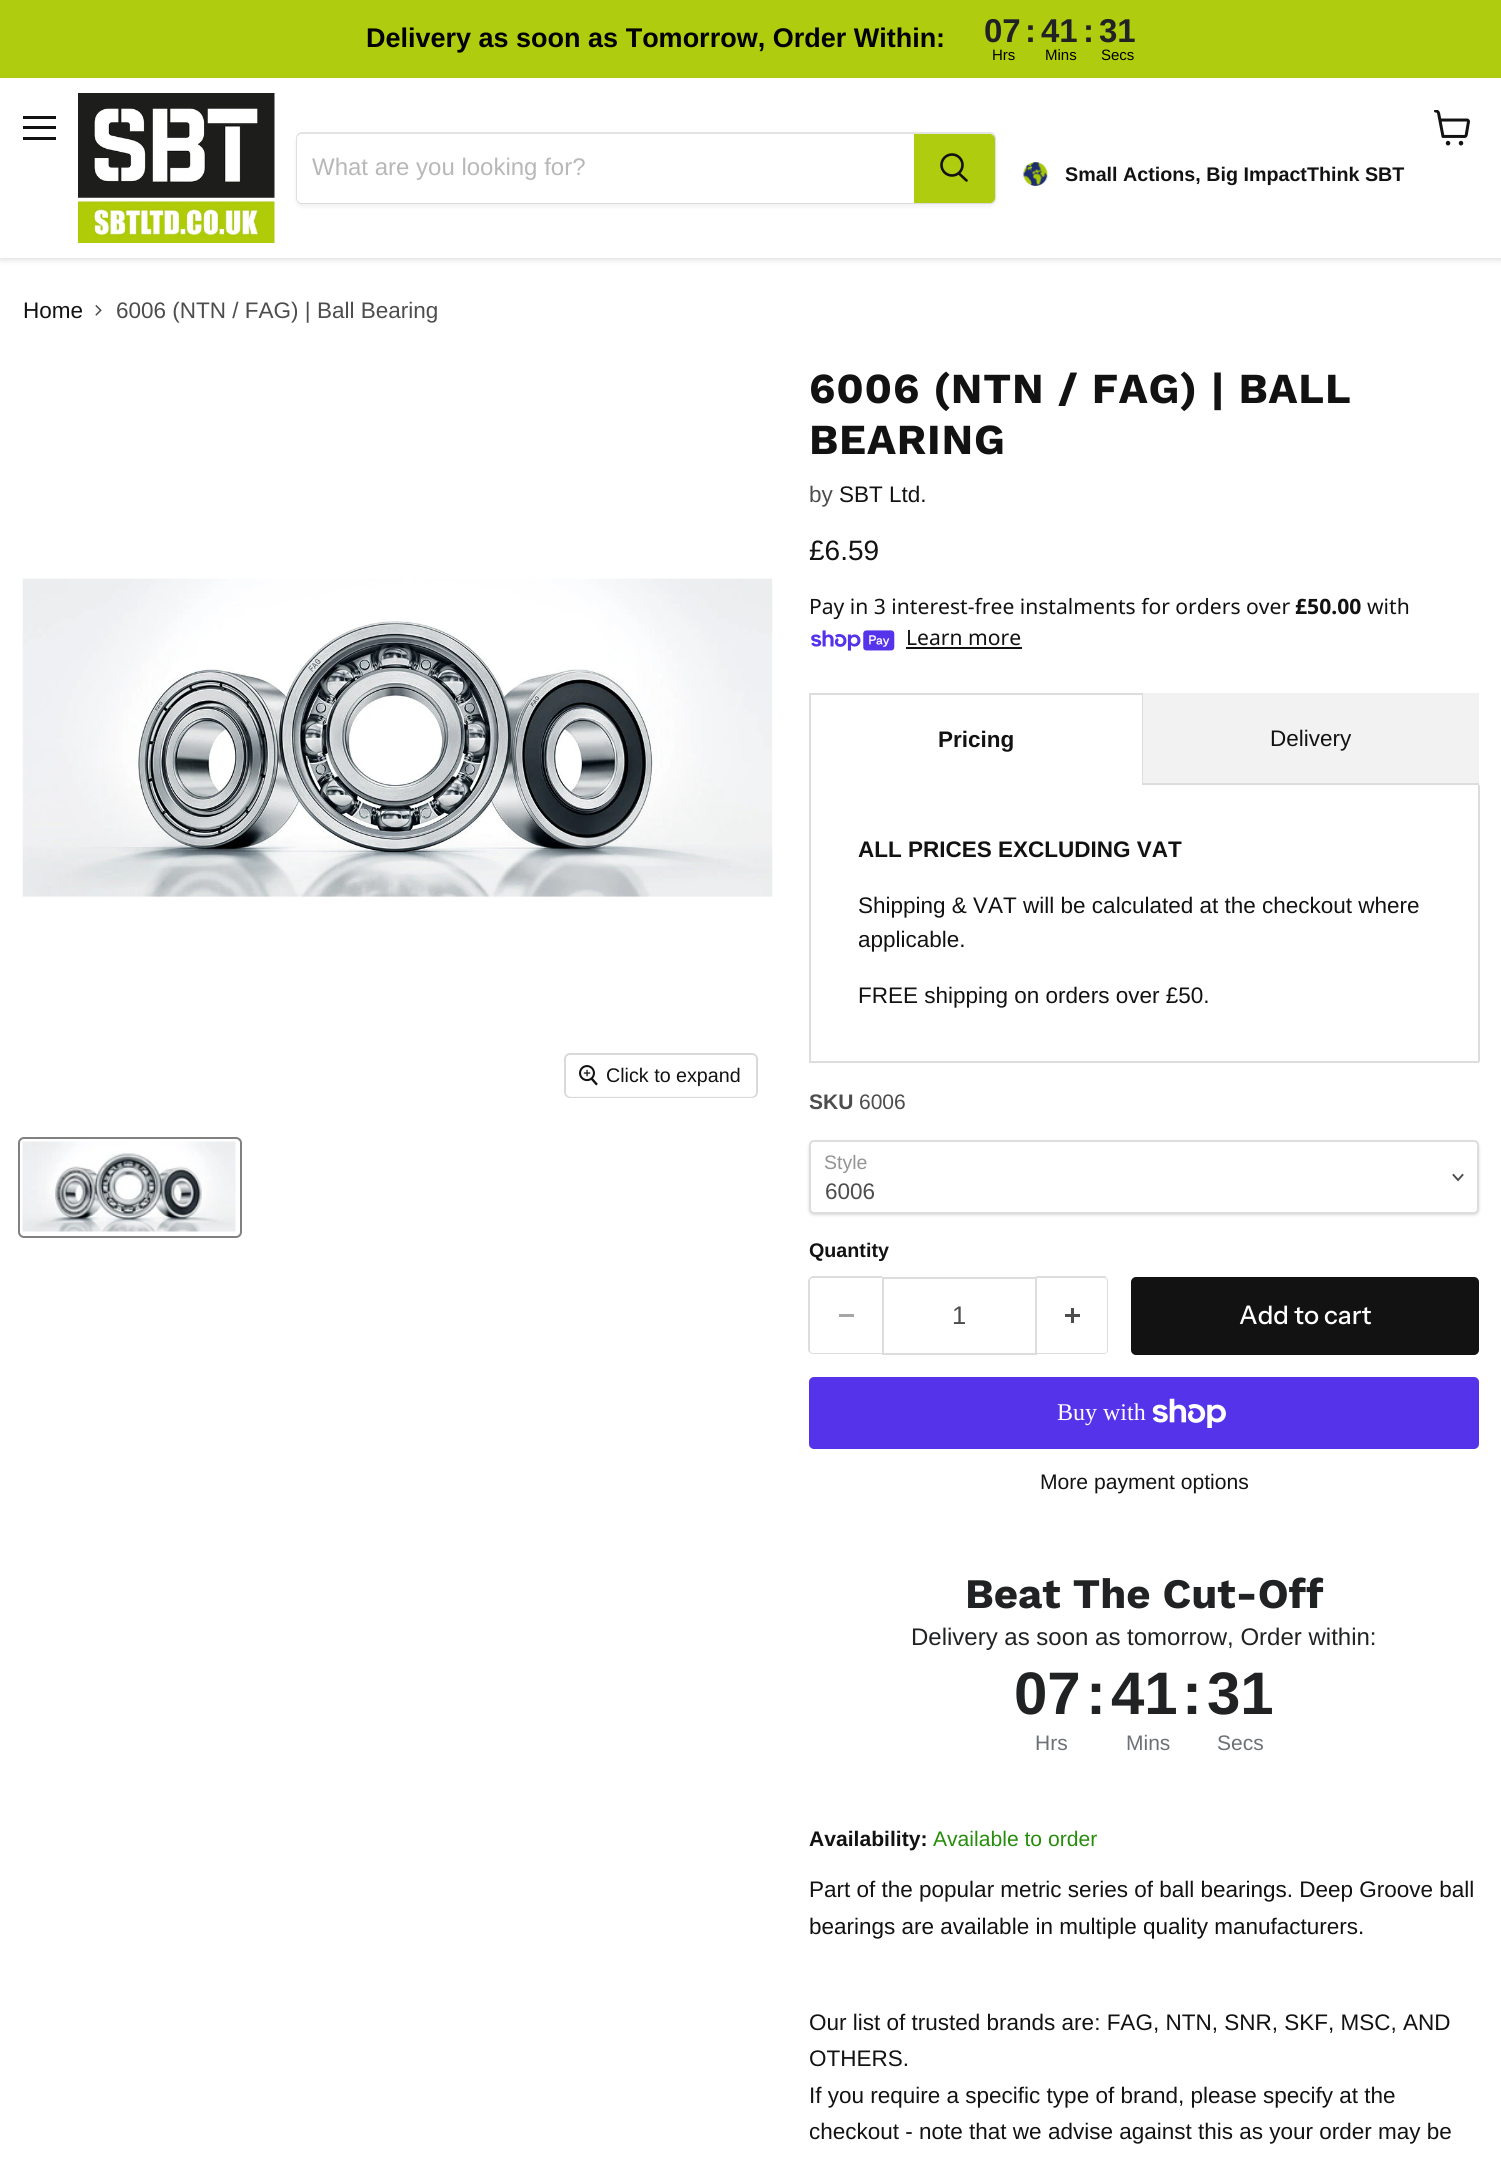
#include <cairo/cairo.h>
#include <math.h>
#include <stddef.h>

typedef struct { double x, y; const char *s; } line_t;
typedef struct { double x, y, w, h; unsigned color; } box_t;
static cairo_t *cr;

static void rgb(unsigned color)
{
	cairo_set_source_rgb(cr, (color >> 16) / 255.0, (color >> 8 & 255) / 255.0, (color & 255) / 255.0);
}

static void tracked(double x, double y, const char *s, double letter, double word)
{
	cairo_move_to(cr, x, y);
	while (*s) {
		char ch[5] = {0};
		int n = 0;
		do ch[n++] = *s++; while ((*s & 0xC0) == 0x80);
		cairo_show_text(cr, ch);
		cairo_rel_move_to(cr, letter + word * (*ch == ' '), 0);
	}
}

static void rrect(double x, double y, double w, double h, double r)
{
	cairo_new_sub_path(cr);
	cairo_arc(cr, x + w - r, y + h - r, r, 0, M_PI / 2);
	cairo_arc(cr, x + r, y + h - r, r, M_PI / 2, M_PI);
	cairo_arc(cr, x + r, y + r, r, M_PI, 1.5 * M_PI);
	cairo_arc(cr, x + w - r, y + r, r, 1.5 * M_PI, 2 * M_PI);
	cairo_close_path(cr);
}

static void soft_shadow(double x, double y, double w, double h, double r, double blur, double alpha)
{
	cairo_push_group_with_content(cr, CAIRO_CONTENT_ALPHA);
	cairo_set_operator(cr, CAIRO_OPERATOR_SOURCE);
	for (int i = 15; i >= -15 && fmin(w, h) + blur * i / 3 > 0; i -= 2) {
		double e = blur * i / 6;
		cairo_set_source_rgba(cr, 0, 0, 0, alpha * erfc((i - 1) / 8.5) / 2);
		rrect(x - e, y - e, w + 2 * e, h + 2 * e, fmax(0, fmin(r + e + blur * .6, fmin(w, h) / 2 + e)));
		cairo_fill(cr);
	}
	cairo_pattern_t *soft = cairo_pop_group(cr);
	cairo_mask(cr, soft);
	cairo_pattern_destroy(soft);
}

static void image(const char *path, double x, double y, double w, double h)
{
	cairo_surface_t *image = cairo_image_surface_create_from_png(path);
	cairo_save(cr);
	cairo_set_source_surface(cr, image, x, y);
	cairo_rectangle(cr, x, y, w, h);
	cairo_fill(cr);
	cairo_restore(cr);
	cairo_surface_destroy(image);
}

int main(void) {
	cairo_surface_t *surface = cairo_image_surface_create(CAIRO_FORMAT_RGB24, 1501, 2166);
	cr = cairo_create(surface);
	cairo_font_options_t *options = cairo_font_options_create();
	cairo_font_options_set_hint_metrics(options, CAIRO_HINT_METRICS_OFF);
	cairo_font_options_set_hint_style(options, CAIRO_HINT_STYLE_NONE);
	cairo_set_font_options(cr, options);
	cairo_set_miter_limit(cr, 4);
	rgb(0xffffff);
	cairo_paint(cr);
	rgb(0xafcc0e);
	cairo_rectangle(cr, 0, 0, 1501, 78);
	cairo_fill(cr);
	cairo_save(cr);
	cairo_set_fill_rule(cr, CAIRO_FILL_RULE_EVEN_ODD);
	cairo_new_path(cr);
	cairo_move_to(cr, 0, 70);
	cairo_line_to(cr, 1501, 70);
	cairo_line_to(cr, 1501, 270);
	cairo_line_to(cr, 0, 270);
	cairo_close_path(cr);
	cairo_move_to(cr, 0, 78);
	cairo_line_to(cr, 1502, 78);
	cairo_line_to(cr, 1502, 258);
	cairo_line_to(cr, 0, 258);
	cairo_close_path(cr);
	cairo_clip(cr);
	rgb(0x808080);
	soft_shadow(0, 80, 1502, 180, 0, 3, 0.25);
	cairo_restore(cr);
	{
		static const box_t items[] = {
			{23, 116, 33, 3, 0x121212},
			{23, 126, 33, 3, 0x121212},
			{23, 137, 33, 3, 0x121212},
		};
		for (size_t i = 0; i < sizeof items / sizeof *items; i++) {
			rgb(items[i].color);
			cairo_rectangle(cr, items[i].x, items[i].y, items[i].w, items[i].h);
			cairo_fill(cr);
		}
	}
	image("img/1.png", 1434, 110, 36, 36);
	image("img/2.png", 78, 93, 197, 150);
	rgb(0x808080);
	soft_shadow(296, 135, 700, 72, 6, 2, 0.11);
	rrect(297, 133, 698, 70, 5);
	cairo_set_source_rgba(cr, 0.502, 0.502, 0.502, 0.2);
	cairo_stroke(cr);
	rgb(0xffffff);
	cairo_new_path(cr);
	cairo_move_to(cr, 302, 134);
	cairo_line_to(cr, 914, 134);
	cairo_line_to(cr, 914, 203);
	cairo_line_to(cr, 302, 203);
	cairo_curve_to(cr, 299, 203, 297, 201, 297, 198);
	cairo_line_to(cr, 297, 139);
	cairo_curve_to(cr, 297, 136, 299, 134, 302, 134);
	cairo_close_path(cr);
	cairo_fill(cr);
	rgb(0xafcc0e);
	cairo_new_path(cr);
	cairo_move_to(cr, 915, 135);
	cairo_line_to(cr, 990, 135);
	cairo_curve_to(cr, 992, 135, 994, 137, 994, 139);
	cairo_line_to(cr, 994, 198);
	cairo_curve_to(cr, 994, 200, 992, 202, 990, 202);
	cairo_line_to(cr, 915, 202);
	cairo_close_path(cr);
	cairo_fill_preserve(cr);
	cairo_stroke(cr);
	cairo_new_path(cr);
	cairo_move_to(cr, 966.5, 180.5);
	cairo_line_to(cr, 959, 173.5);
	rgb(0x121212);
	cairo_set_line_width(cr, 2.6);
	cairo_set_line_cap(cr, CAIRO_LINE_CAP_ROUND);
	cairo_stroke(cr);
	cairo_arc(cr, 952, 165, 10.5, 0, 2 * M_PI);
	cairo_set_line_cap(cr, CAIRO_LINE_CAP_BUTT);
	cairo_stroke(cr);
	image("img/3.png", 1022, 162, 26, 24);
	image("img/4.png", 95, 304, 7, 12);
	image("img/5.png", 22, 578, 751, 319);
	rrect(565, 1054, 192, 43, 5);
	rgb(0xd9d9d9);
	cairo_set_line_width(cr, 2);
	cairo_stroke(cr);
	cairo_set_source_rgba(cr, 1, 1, 1, 0.9);
	rrect(566, 1055, 190, 42, 5);
	cairo_fill(cr);
	image("img/6.png", 579, 1065, 19, 21);
	rrect(19, 1138, 222, 99, 5);
	rgb(0x818181);
	cairo_stroke(cr);
	image("img/7.png", 22, 1141, 214, 91);
	image("img/8.png", 811, 630, 84, 21);
	{
		static const box_t items[] = {
			{906, 647, 116, 2, 0x121212},
			{809, 693, 334, 2, 0xdddddd},
			{1142, 693, 1, 92, 0xdddddd},
			{809, 693, 2, 92, 0xdddddd},
			{1143, 693, 336, 90, 0xf2f2f2},
			{1143, 783, 336, 2, 0xdddddd},
			{1478, 785, 2, 277, 0xdddddd},
			{809, 1061, 670, 2, 0xdddddd},
			{809, 785, 2, 277, 0xdddddd},
		};
		for (size_t i = 0; i < sizeof items / sizeof *items; i++) {
			rgb(items[i].color);
			cairo_rectangle(cr, items[i].x, items[i].y, items[i].w, items[i].h);
			cairo_fill(cr);
		}
	}
	rgb(0x000000);
	soft_shadow(809, 1142, 670, 73, 5, 1.5, 0.15);
	rgb(0xffffff);
	rrect(810, 1141, 668, 72, 4);
	cairo_fill_preserve(cr);
	rgb(0xdddddd);
	cairo_stroke(cr);
	cairo_new_path(cr);
	cairo_move_to(cr, 1458, 1180);
	cairo_line_to(cr, 1462.5, 1175);
	cairo_move_to(cr, 1458, 1180);
	cairo_line_to(cr, 1453.5, 1175);
	rgb(0x4d4d4d);
	cairo_set_line_width(cr, 1.9);
	cairo_set_line_cap(cr, CAIRO_LINE_CAP_SQUARE);
	cairo_stroke(cr);
	rgb(0xdddddd);
	cairo_set_fill_rule(cr, CAIRO_FILL_RULE_EVEN_ODD);
	cairo_new_path(cr);
	cairo_move_to(cr, 813, 1276);
	cairo_line_to(cr, 882, 1276);
	cairo_line_to(cr, 882, 1354);
	cairo_line_to(cr, 813, 1354);
	cairo_curve_to(cr, 811, 1354, 808, 1352, 808, 1350);
	cairo_line_to(cr, 808, 1281);
	cairo_curve_to(cr, 808, 1279, 811, 1276, 813, 1276);
	cairo_close_path(cr);
	cairo_move_to(cr, 813, 1278);
	cairo_line_to(cr, 882, 1278);
	cairo_line_to(cr, 882, 1353);
	cairo_line_to(cr, 813, 1353);
	cairo_curve_to(cr, 811, 1353, 810, 1352, 810, 1350);
	cairo_line_to(cr, 810, 1281);
	cairo_curve_to(cr, 810, 1279, 811, 1278, 813, 1278);
	cairo_close_path(cr);
	cairo_fill(cr);
	rgb(0xa6a6a6);
	cairo_rectangle(cr, 839, 1314, 15, 3);
	cairo_fill(cr);
	cairo_rectangle(cr, 883, 1278, 153, 76);
	rgb(0xdddddd);
	cairo_set_line_width(cr, 2);
	cairo_set_line_cap(cr, CAIRO_LINE_CAP_BUTT);
	cairo_stroke(cr);
	cairo_new_path(cr);
	cairo_move_to(cr, 1036, 1276);
	cairo_line_to(cr, 1104, 1276);
	cairo_curve_to(cr, 1106, 1276, 1108, 1279, 1108, 1281);
	cairo_line_to(cr, 1108, 1350);
	cairo_curve_to(cr, 1108, 1352, 1106, 1354, 1104, 1354);
	cairo_line_to(cr, 1036, 1354);
	cairo_close_path(cr);
	cairo_move_to(cr, 1036, 1278);
	cairo_line_to(cr, 1104, 1278);
	cairo_curve_to(cr, 1106, 1278, 1107, 1279, 1107, 1281);
	cairo_line_to(cr, 1107, 1350);
	cairo_curve_to(cr, 1107, 1352, 1106, 1353, 1104, 1353);
	cairo_line_to(cr, 1036, 1353);
	cairo_close_path(cr);
	cairo_fill(cr);
	image("img/9.png", 1065, 1308, 15, 15);
	rgb(0x121212);
	rrect(1132, 1278, 346, 76, 4);
	cairo_fill_preserve(cr);
	cairo_stroke(cr);
	rgb(0x5433eb);
	rrect(809, 1377, 670, 72, 5);
	cairo_fill(cr);
	image("img/10.png", 1152, 1398, 74, 30);
	cairo_select_font_face(cr, "Liberation Sans", CAIRO_FONT_SLANT_NORMAL, CAIRO_FONT_WEIGHT_BOLD);
	cairo_set_font_size(cr, 27);
	rgb(0x000000);
	cairo_move_to(cr, 366, 47);
	cairo_show_text(cr, "Delivery as soon as Tomorrow, Order Within:");
	cairo_set_font_size(cr, 33);
	rgb(0x202223);
	{
		static const line_t items[] = {
			{984, 42, "07"},
			{1025, 42, ":"},
			{1041, 42, "41"},
			{1083, 42, ":"},
			{1099, 42, "31"},
		};
		for (size_t i = 0; i < sizeof items / sizeof *items; i++) {
			cairo_move_to(cr, items[i].x, items[i].y);
			cairo_show_text(cr, items[i].s);
		}
	}
	cairo_select_font_face(cr, "Liberation Sans", CAIRO_FONT_SLANT_NORMAL, CAIRO_FONT_WEIGHT_NORMAL);
	cairo_set_font_size(cr, 15);
	rgb(0x000000);
	{
		static const line_t items[] = {
			{992, 60, "Hrs"},
			{1045, 60, "Mins"},
			{1101, 60, "Secs"},
		};
		for (size_t i = 0; i < sizeof items / sizeof *items; i++) {
			cairo_move_to(cr, items[i].x, items[i].y);
			cairo_show_text(cr, items[i].s);
		}
	}
	cairo_set_font_size(cr, 24);
	rgb(0xb8b8b8);
	cairo_move_to(cr, 312, 175);
	cairo_show_text(cr, "What are you looking for?");
	cairo_select_font_face(cr, "Liberation Sans", CAIRO_FONT_SLANT_NORMAL, CAIRO_FONT_WEIGHT_BOLD);
	cairo_set_font_size(cr, 19.7);
	rgb(0x121212);
	cairo_move_to(cr, 1065, 181);
	cairo_show_text(cr, "Small Actions, Big ImpactThink SBT");
	cairo_select_font_face(cr, "Liberation Sans", CAIRO_FONT_SLANT_NORMAL, CAIRO_FONT_WEIGHT_NORMAL);
	cairo_set_font_size(cr, 22.5);
	cairo_move_to(cr, 23, 318);
	cairo_show_text(cr, "Home");
	rgb(0x4d4d4d);
	cairo_move_to(cr, 116, 318);
	cairo_show_text(cr, "6006 (NTN / FAG) | Ball Bearing");
	cairo_set_font_size(cr, 19.7);
	rgb(0x121212);
	cairo_move_to(cr, 606, 1082);
	cairo_show_text(cr, "Click to expand");
	cairo_select_font_face(cr, "Work Sans", CAIRO_FONT_SLANT_NORMAL, CAIRO_FONT_WEIGHT_BOLD);
	cairo_set_font_size(cr, 42.75);
	tracked(809, 403, "6006 (NTN / FAG) | BALL", 0.85, 0);
	tracked(809, 454, "BEARING", 0.85, 0);
	cairo_select_font_face(cr, "Liberation Sans", CAIRO_FONT_SLANT_NORMAL, CAIRO_FONT_WEIGHT_NORMAL);
	cairo_set_font_size(cr, 22.5);
	rgb(0x4d4d4d);
	cairo_move_to(cr, 809, 502);
	cairo_show_text(cr, "by");
	rgb(0x121212);
	cairo_move_to(cr, 839, 502);
	cairo_show_text(cr, "SBT Ltd.");
	cairo_set_font_size(cr, 28);
	cairo_move_to(cr, 809, 560);
	cairo_show_text(cr, "£6.59");
	cairo_select_font_face(cr, "Noto Sans", CAIRO_FONT_SLANT_NORMAL, CAIRO_FONT_WEIGHT_NORMAL);
	cairo_set_font_size(cr, 21.1);
	cairo_move_to(cr, 809, 614);
	cairo_show_text(cr, "Pay in 3 interest-free instalments for orders over");
	cairo_select_font_face(cr, "Noto Sans", CAIRO_FONT_SLANT_NORMAL, CAIRO_FONT_WEIGHT_BOLD);
	cairo_move_to(cr, 1295, 614);
	cairo_show_text(cr, "£50.00");
	cairo_select_font_face(cr, "Noto Sans", CAIRO_FONT_SLANT_NORMAL, CAIRO_FONT_WEIGHT_NORMAL);
	cairo_move_to(cr, 1367, 614);
	cairo_show_text(cr, "with");
	cairo_move_to(cr, 906, 645);
	cairo_show_text(cr, "Learn more");
	cairo_select_font_face(cr, "Liberation Sans", CAIRO_FONT_SLANT_NORMAL, CAIRO_FONT_WEIGHT_BOLD);
	cairo_set_font_size(cr, 22.5);
	cairo_move_to(cr, 938, 747);
	cairo_show_text(cr, "Pricing");
	cairo_select_font_face(cr, "Liberation Sans", CAIRO_FONT_SLANT_NORMAL, CAIRO_FONT_WEIGHT_NORMAL);
	cairo_move_to(cr, 1270, 746);
	cairo_show_text(cr, "Delivery");
	cairo_select_font_face(cr, "Liberation Sans", CAIRO_FONT_SLANT_NORMAL, CAIRO_FONT_WEIGHT_BOLD);
	cairo_move_to(cr, 858, 857);
	cairo_show_text(cr, "ALL PRICES EXCLUDING VAT");
	cairo_select_font_face(cr, "Liberation Sans", CAIRO_FONT_SLANT_NORMAL, CAIRO_FONT_WEIGHT_NORMAL);
	{
		static const line_t items[] = {
			{858, 913, "Shipping & VAT will be calculated at the checkout where"},
			{858, 947, "applicable."},
			{858, 1003, "FREE shipping on orders over £50."},
		};
		for (size_t i = 0; i < sizeof items / sizeof *items; i++) {
			cairo_move_to(cr, items[i].x, items[i].y);
			cairo_show_text(cr, items[i].s);
		}
	}
	cairo_select_font_face(cr, "Liberation Sans", CAIRO_FONT_SLANT_NORMAL, CAIRO_FONT_WEIGHT_BOLD);
	cairo_set_font_size(cr, 21);
	rgb(0x4d4d4d);
	cairo_move_to(cr, 809, 1109);
	cairo_show_text(cr, "SKU");
	cairo_select_font_face(cr, "Liberation Sans", CAIRO_FONT_SLANT_NORMAL, CAIRO_FONT_WEIGHT_NORMAL);
	cairo_move_to(cr, 859, 1109);
	cairo_show_text(cr, "6006");
	cairo_set_font_size(cr, 19.5);
	rgb(0x949494);
	cairo_move_to(cr, 824, 1169);
	cairo_show_text(cr, "Style");
	cairo_set_font_size(cr, 22.5);
	rgb(0x4d4d4d);
	cairo_move_to(cr, 825, 1199);
	cairo_show_text(cr, "6006");
	cairo_select_font_face(cr, "Liberation Sans", CAIRO_FONT_SLANT_NORMAL, CAIRO_FONT_WEIGHT_BOLD);
	cairo_set_font_size(cr, 19.7);
	rgb(0x121212);
	cairo_move_to(cr, 809, 1257);
	cairo_show_text(cr, "Quantity");
	cairo_select_font_face(cr, "Liberation Sans", CAIRO_FONT_SLANT_NORMAL, CAIRO_FONT_WEIGHT_NORMAL);
	cairo_set_font_size(cr, 25.5);
	rgb(0x4d4d4d);
	cairo_move_to(cr, 952, 1324);
	cairo_show_text(cr, "1");
	cairo_select_font_face(cr, "Instrument Sans Medium", CAIRO_FONT_SLANT_NORMAL, CAIRO_FONT_WEIGHT_NORMAL);
	rgb(0xffffff);
	cairo_move_to(cr, 1239, 1324);
	cairo_show_text(cr, "Add to cart");
	cairo_select_font_face(cr, "Liberation Serif", CAIRO_FONT_SLANT_NORMAL, CAIRO_FONT_WEIGHT_NORMAL);
	cairo_set_font_size(cr, 24);
	cairo_move_to(cr, 1057, 1420);
	cairo_show_text(cr, "Buy with");
	cairo_select_font_face(cr, "Liberation Sans", CAIRO_FONT_SLANT_NORMAL, CAIRO_FONT_WEIGHT_NORMAL);
	cairo_set_font_size(cr, 21.1);
	rgb(0x121212);
	cairo_move_to(cr, 1040, 1489);
	cairo_show_text(cr, "More payment options");
	cairo_select_font_face(cr, "Work Sans", CAIRO_FONT_SLANT_NORMAL, CAIRO_FONT_WEIGHT_BOLD);
	cairo_set_font_size(cr, 42);
	rgb(0x202223);
	cairo_move_to(cr, 965, 1608);
	cairo_show_text(cr, "Beat The Cut-Off");
	cairo_select_font_face(cr, "Liberation Sans", CAIRO_FONT_SLANT_NORMAL, CAIRO_FONT_WEIGHT_NORMAL);
	cairo_set_font_size(cr, 24);
	cairo_move_to(cr, 911, 1645);
	cairo_show_text(cr, "Delivery as soon as tomorrow, Order within:");
	cairo_select_font_face(cr, "Liberation Sans", CAIRO_FONT_SLANT_NORMAL, CAIRO_FONT_WEIGHT_BOLD);
	cairo_set_font_size(cr, 60);
	{
		static const line_t items[] = {
			{1014, 1714, "07"},
			{1086, 1714, ":"},
			{1111, 1714, "41"},
			{1182, 1714, ":"},
			{1207, 1714, "31"},
		};
		for (size_t i = 0; i < sizeof items / sizeof *items; i++) {
			cairo_move_to(cr, items[i].x, items[i].y);
			cairo_show_text(cr, items[i].s);
		}
	}
	cairo_select_font_face(cr, "Liberation Sans", CAIRO_FONT_SLANT_NORMAL, CAIRO_FONT_WEIGHT_NORMAL);
	cairo_set_font_size(cr, 21);
	rgb(0x6d7175);
	{
		static const line_t items[] = {
			{1035, 1750, "Hrs"},
			{1126, 1750, "Mins"},
			{1217, 1750, "Secs"},
		};
		for (size_t i = 0; i < sizeof items / sizeof *items; i++) {
			cairo_move_to(cr, items[i].x, items[i].y);
			cairo_show_text(cr, items[i].s);
		}
	}
	cairo_select_font_face(cr, "Liberation Sans", CAIRO_FONT_SLANT_NORMAL, CAIRO_FONT_WEIGHT_BOLD);
	cairo_set_font_size(cr, 21.1);
	rgb(0x121212);
	cairo_move_to(cr, 809, 1846);
	cairo_show_text(cr, "Availability:");
	cairo_select_font_face(cr, "Liberation Sans", CAIRO_FONT_SLANT_NORMAL, CAIRO_FONT_WEIGHT_NORMAL);
	rgb(0x268c0b);
	cairo_move_to(cr, 933, 1846);
	cairo_show_text(cr, "Available to order");
	cairo_set_font_size(cr, 22.5);
	rgb(0x121212);
	{
		static const line_t items[] = {
			{809, 1897, "Part of the popular metric series of ball bearings. Deep Groove ball"},
			{809, 1934, "bearings are available in multiple quality manufacturers."},
			{809, 2030, "Our list of trusted brands are: FAG, NTN, SNR, SKF, MSC, AND"},
			{809, 2066, "OTHERS."},
			{809, 2103, "If you require a specific type of brand, please specify at the"},
			{809, 2139, "checkout - note that we advise against this as your order may be"},
		};
		for (size_t i = 0; i < sizeof items / sizeof *items; i++) {
			cairo_move_to(cr, items[i].x, items[i].y);
			cairo_show_text(cr, items[i].s);
		}
	}
	cairo_surface_write_to_png(surface, "page.png");
	cairo_font_options_destroy(options);
	cairo_destroy(cr);
	cairo_surface_destroy(surface);
	return 0;
}
